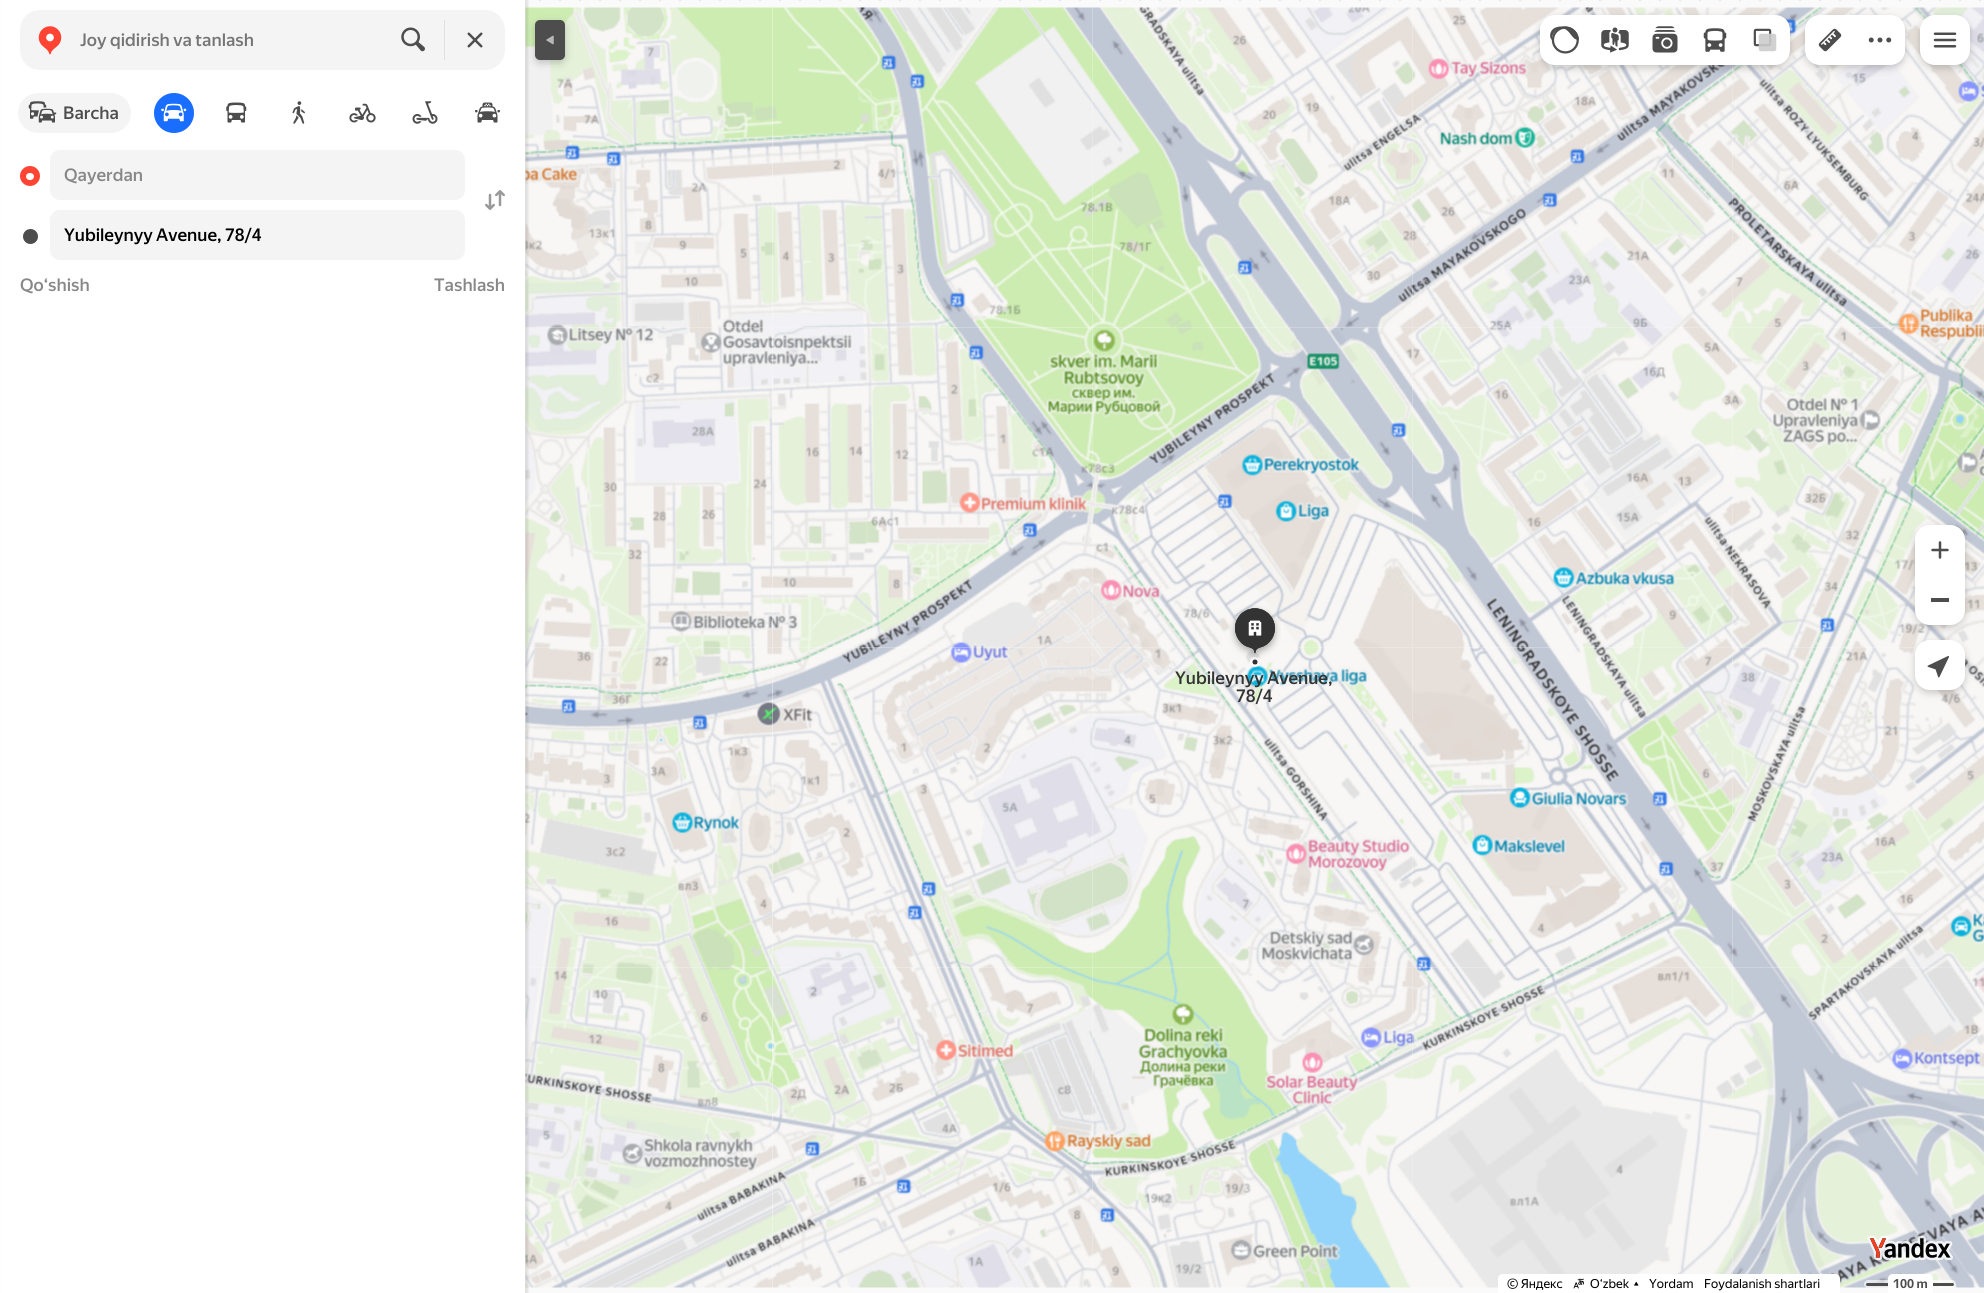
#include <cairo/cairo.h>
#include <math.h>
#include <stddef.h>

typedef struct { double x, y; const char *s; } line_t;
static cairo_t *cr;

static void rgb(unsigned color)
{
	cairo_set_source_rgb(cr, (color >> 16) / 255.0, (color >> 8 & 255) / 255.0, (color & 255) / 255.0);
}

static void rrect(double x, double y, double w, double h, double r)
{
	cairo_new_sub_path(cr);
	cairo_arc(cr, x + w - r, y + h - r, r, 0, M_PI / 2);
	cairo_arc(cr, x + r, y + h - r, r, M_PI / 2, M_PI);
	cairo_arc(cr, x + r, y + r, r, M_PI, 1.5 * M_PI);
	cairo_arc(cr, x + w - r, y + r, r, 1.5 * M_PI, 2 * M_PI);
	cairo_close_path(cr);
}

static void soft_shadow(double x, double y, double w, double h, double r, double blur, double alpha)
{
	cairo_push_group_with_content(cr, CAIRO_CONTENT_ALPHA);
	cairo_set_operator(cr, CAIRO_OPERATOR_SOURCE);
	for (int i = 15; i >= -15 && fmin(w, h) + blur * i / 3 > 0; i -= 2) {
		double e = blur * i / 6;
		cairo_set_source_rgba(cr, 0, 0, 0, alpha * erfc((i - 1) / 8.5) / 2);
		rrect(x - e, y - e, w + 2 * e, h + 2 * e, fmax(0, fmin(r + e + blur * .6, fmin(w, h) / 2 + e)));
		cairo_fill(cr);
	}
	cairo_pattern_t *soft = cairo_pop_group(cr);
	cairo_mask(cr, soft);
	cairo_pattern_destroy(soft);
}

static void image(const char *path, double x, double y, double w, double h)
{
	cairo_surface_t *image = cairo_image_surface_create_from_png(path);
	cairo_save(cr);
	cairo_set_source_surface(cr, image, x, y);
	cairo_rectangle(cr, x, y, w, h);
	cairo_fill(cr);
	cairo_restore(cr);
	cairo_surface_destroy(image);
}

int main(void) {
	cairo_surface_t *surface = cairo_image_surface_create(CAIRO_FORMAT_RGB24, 1984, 1293);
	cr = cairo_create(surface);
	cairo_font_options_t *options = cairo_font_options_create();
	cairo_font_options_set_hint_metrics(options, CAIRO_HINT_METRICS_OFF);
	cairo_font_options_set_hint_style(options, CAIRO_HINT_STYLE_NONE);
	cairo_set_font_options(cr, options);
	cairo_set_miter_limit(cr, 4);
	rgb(0xffffff);
	cairo_paint(cr);
	image("img/1.png", 525, 0, 1459, 1293);
	image("img/34.png", 1092, 327, 321, 321);
	image("img/28.png", 772, 7, 321, 321);
	image("img/29.png", 1092, 7, 321, 321);
	image("img/39.png", 1092, 647, 321, 321);
	image("img/33.png", 772, 327, 321, 321);
	image("img/38.png", 772, 647, 321, 321);
	image("img/32.png", 525, 327, 248, 321);
	image("img/27.png", 525, 7, 248, 321);
	image("img/43.png", 772, 967, 321, 321);
	image("img/37.png", 525, 647, 248, 321);
	image("img/42.png", 525, 967, 248, 321);
	rgb(0x000000);
	soft_shadow(3, 0, 525, 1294, 0, 1, 0.1);
	soft_shadow(535, 23, 30, 40, 5, 4, 0.2);
	rgb(0xffffff);
	cairo_rectangle(cr, 2, 0, 523, 1293);
	cairo_fill(cr);
	rgb(0xf4f4f4);
	rrect(20, 10, 485, 60, 20);
	cairo_fill(cr);
	image("img/2.png", 38, 26, 24, 29);
	image("img/3.png", 401, 27, 24, 25);
	rgb(0xe0e0e0);
	cairo_rectangle(cr, 444, 20, 1, 40);
	cairo_fill(cr);
	image("img/4.png", 467, 32, 16, 16);
	image("img/30.png", 1412, 7, 321, 321);
	image("img/35.png", 1412, 327, 321, 321);
	image("img/31.png", 1732, 7, 252, 321);
	rgb(0x000000);
	soft_shadow(1540, 18, 250, 50, 15, 4, 0.2);
	rgb(0xffffff);
	cairo_new_path(cr);
	cairo_move_to(cr, 1555, 15);
	cairo_line_to(cr, 1590, 15);
	cairo_line_to(cr, 1590, 65);
	cairo_line_to(cr, 1555, 65);
	cairo_curve_to(cr, 1546.5, 65, 1540, 58.5, 1540, 50);
	cairo_line_to(cr, 1540, 30);
	cairo_curve_to(cr, 1540, 21.5, 1546.5, 15, 1555, 15);
	cairo_close_path(cr);
	cairo_fill(cr);
	image("img/5.png", 1550, 26, 29, 28);
	cairo_rectangle(cr, 1590, 15, 150, 50);
	cairo_fill(cr);
	image("img/6.png", 1601, 27, 28, 26);
	cairo_new_path(cr);
	cairo_move_to(cr, 1740, 15);
	cairo_line_to(cr, 1775, 15);
	cairo_curve_to(cr, 1783.5, 15, 1790, 21.5, 1790, 30);
	cairo_line_to(cr, 1790, 50);
	cairo_curve_to(cr, 1790, 58.5, 1783.5, 65, 1775, 65);
	cairo_line_to(cr, 1740, 65);
	cairo_close_path(cr);
	cairo_fill(cr);
	image("img/7.png", 1753, 28, 24, 24);
	image("img/8.png", 1652, 26, 26, 27);
	image("img/9.png", 1703, 28, 24, 24);
	rgb(0x000000);
	soft_shadow(1805, 18, 100, 50, 15, 4, 0.2);
	rgb(0xffffff);
	cairo_new_path(cr);
	cairo_move_to(cr, 1820, 15);
	cairo_line_to(cr, 1855, 15);
	cairo_line_to(cr, 1855, 65);
	cairo_line_to(cr, 1820, 65);
	cairo_curve_to(cr, 1811.5, 65, 1805, 58.5, 1805, 50);
	cairo_line_to(cr, 1805, 30);
	cairo_curve_to(cr, 1805, 21.5, 1811.5, 15, 1820, 15);
	cairo_close_path(cr);
	cairo_fill(cr);
	image("img/10.png", 1818, 28, 24, 24);
	cairo_new_path(cr);
	cairo_move_to(cr, 1855, 15);
	cairo_line_to(cr, 1890, 15);
	cairo_curve_to(cr, 1898.5, 15, 1905, 21.5, 1905, 30);
	cairo_line_to(cr, 1905, 50);
	cairo_curve_to(cr, 1905, 58.5, 1898.5, 65, 1890, 65);
	cairo_line_to(cr, 1855, 65);
	cairo_close_path(cr);
	cairo_fill(cr);
	image("img/11.png", 1868, 37, 24, 6);
	rgb(0x000000);
	soft_shadow(1920, 18, 50, 50, 15, 4, 0.2);
	rgb(0xffffff);
	rrect(1920, 15, 50, 50, 15);
	cairo_fill(cr);
	image("img/12.png", 1933, 32, 24, 16);
	image("img/40.png", 1412, 647, 321, 321);
	image("img/36.png", 1732, 327, 252, 321);
	rgb(0x000000);
	soft_shadow(1915, 528, 50, 100, 15, 4, 0.2);
	rgb(0xffffff);
	cairo_new_path(cr);
	cairo_move_to(cr, 1930, 525);
	cairo_line_to(cr, 1950, 525);
	cairo_curve_to(cr, 1958.5, 525, 1965, 531.5, 1965, 540);
	cairo_line_to(cr, 1965, 575);
	cairo_line_to(cr, 1915, 575);
	cairo_line_to(cr, 1915, 540);
	cairo_curve_to(cr, 1915, 531.5, 1921.5, 525, 1930, 525);
	cairo_close_path(cr);
	cairo_fill(cr);
	image("img/13.png", 1931, 541, 18, 18);
	cairo_new_path(cr);
	cairo_move_to(cr, 1915, 575);
	cairo_line_to(cr, 1965, 575);
	cairo_line_to(cr, 1965, 610);
	cairo_curve_to(cr, 1965, 618.5, 1958.5, 625, 1950, 625);
	cairo_line_to(cr, 1930, 625);
	cairo_curve_to(cr, 1921.5, 625, 1915, 618.5, 1915, 610);
	cairo_close_path(cr);
	cairo_fill(cr);
	rgb(0x4d4d4d);
	cairo_rectangle(cr, 1931, 598, 18, 4);
	cairo_fill(cr);
	image("img/44.png", 1092, 967, 321, 321);
	image("img/45.png", 1412, 967, 321, 321);
	image("img/41.png", 1732, 647, 252, 321);
	rgb(0x000000);
	soft_shadow(1915, 643, 50, 50, 15, 4, 0.2);
	rgb(0xffffff);
	rrect(1915, 640, 50, 50, 15);
	cairo_fill(cr);
	image("img/14.png", 1927, 656, 22, 22);
	rgb(0x4d4d4d);
	rrect(535, 20, 30, 40, 5);
	cairo_fill(cr);
	image("img/15.png", 546, 35, 8, 10);
	rgb(0xf4f4f4);
	rrect(18, 93, 113, 40, 20);
	cairo_fill(cr);
	image("img/16.png", 28, 101, 29, 22);
	rgb(0x196dff);
	cairo_arc(cr, 174, 113, 20, 0, 2 * M_PI);
	cairo_fill(cr);
	image("img/17.png", 161, 103, 26, 19);
	image("img/18.png", 226, 102, 21, 21);
	image("img/19.png", 292, 101, 13, 23);
	image("img/20.png", 349, 103, 27, 20);
	image("img/21.png", 412, 101, 26, 23);
	image("img/22.png", 475, 102, 25, 21);
	rgb(0xff4433);
	cairo_arc(cr, 30, 176, 8.5, 0, 2 * M_PI);
	cairo_fill_preserve(cr);
	cairo_set_line_width(cr, 3);
	cairo_stroke(cr);
	rgb(0xffffff);
	rrect(26, 173, 8, 7, 3.5);
	cairo_fill(cr);
	rgb(0xf4f4f4);
	rrect(50, 150, 415, 50, 10);
	cairo_fill(cr);
	rgb(0x4d4d4d);
	cairo_arc(cr, 30.5, 236.5, 7.5, 0, 2 * M_PI);
	cairo_fill(cr);
	rgb(0xf4f4f4);
	rrect(50, 210, 415, 50, 10);
	cairo_fill(cr);
	image("img/23.png", 485, 190, 20, 20);
	image("img/46.png", 1732, 967, 252, 321);
	image("img/24.png", 1867, 1235, 86, 26);
	rgb(0xffffff);
	cairo_new_path(cr);
	cairo_move_to(cr, 1503, 1274);
	cairo_line_to(cr, 1835, 1274);
	cairo_curve_to(cr, 1838, 1274, 1840, 1276, 1840, 1279);
	cairo_line_to(cr, 1840, 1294);
	cairo_line_to(cr, 1498, 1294);
	cairo_line_to(cr, 1498, 1279);
	cairo_curve_to(cr, 1498, 1276, 1500, 1274, 1503, 1274);
	cairo_close_path(cr);
	cairo_fill(cr);
	image("img/25.png", 1573, 1278, 11, 11);
	image("img/26.png", 1634, 1281, 5, 5);
	cairo_set_source_rgba(cr, 1, 1, 1, 0.6);
	rrect(1864, 1280, 92, 8, 4);
	cairo_fill(cr);
	rgb(0x4d4d4d);
	rrect(1866, 1283, 88, 3, 1.5);
	cairo_fill(cr);
	rgb(0xffffff);
	cairo_new_path(cr);
	cairo_move_to(cr, 1893, 1274);
	cairo_line_to(cr, 1928, 1274);
	cairo_curve_to(cr, 1931, 1274, 1933, 1276, 1933, 1279);
	cairo_line_to(cr, 1933, 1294);
	cairo_line_to(cr, 1888, 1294);
	cairo_line_to(cr, 1888, 1279);
	cairo_curve_to(cr, 1888, 1276, 1890, 1274, 1893, 1274);
	cairo_close_path(cr);
	cairo_fill(cr);
	image("img/47.png", 1229, 605, 52, 62);
	image("img/48.png", 1248, 620, 14, 16);
	cairo_select_font_face(cr, "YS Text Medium", CAIRO_FONT_SLANT_NORMAL, CAIRO_FONT_WEIGHT_NORMAL);
	cairo_set_font_size(cr, 17.5);
	rgb(0x757575);
	cairo_move_to(cr, 80, 46);
	cairo_show_text(cr, "Joy qidirish va tanlash");
	rgb(0x4d4d4d);
	cairo_move_to(cr, 63, 119);
	cairo_show_text(cr, "Barcha");
	rgb(0x878787);
	cairo_move_to(cr, 64, 181);
	cairo_show_text(cr, "Qayerdan");
	rgb(0x000000);
	cairo_move_to(cr, 64, 241);
	cairo_show_text(cr, "Yubileynyy Avenue, 78/4");
	rgb(0x878787);
	cairo_move_to(cr, 20, 291);
	cairo_show_text(cr, "Qo‘shish");
	cairo_move_to(cr, 434, 291);
	cairo_show_text(cr, "Tashlash");
	cairo_select_font_face(cr, "YS Text", CAIRO_FONT_SLANT_NORMAL, CAIRO_FONT_WEIGHT_NORMAL);
	cairo_set_font_size(cr, 12.5);
	rgb(0x000000);
	{
		static const line_t items[] = {
			{1507, 1288, "© Яндекс"},
			{1590, 1288, "O‘zbek"},
			{1649, 1288, "Yordam"},
			{1704, 1288, "Foydalanish shartlari"},
		};
		for (size_t i = 0; i < sizeof items / sizeof *items; i++) {
			cairo_move_to(cr, items[i].x, items[i].y);
			cairo_show_text(cr, items[i].s);
		}
	}
	cairo_select_font_face(cr, "YS Text", CAIRO_FONT_SLANT_NORMAL, CAIRO_FONT_WEIGHT_BOLD);
	rgb(0x4d4d4d);
	cairo_move_to(cr, 1893, 1288);
	cairo_show_text(cr, "100 m");
	cairo_select_font_face(cr, "YS Text Medium", CAIRO_FONT_SLANT_NORMAL, CAIRO_FONT_WEIGHT_NORMAL);
	cairo_set_font_size(cr, 17.5);
	rgb(0x333333);
	{
		static const line_t items[] = {
			{1175, 684, "Yubileynyy"},
			{1267, 684, "Avenue,"},
			{1236, 702, "78/4"},
		};
		for (size_t i = 0; i < sizeof items / sizeof *items; i++) {
			cairo_move_to(cr, items[i].x, items[i].y);
			cairo_show_text(cr, items[i].s);
		}
	}
	cairo_surface_write_to_png(surface, "page.png");
	cairo_font_options_destroy(options);
	cairo_destroy(cr);
	cairo_surface_destroy(surface);
	return 0;
}
